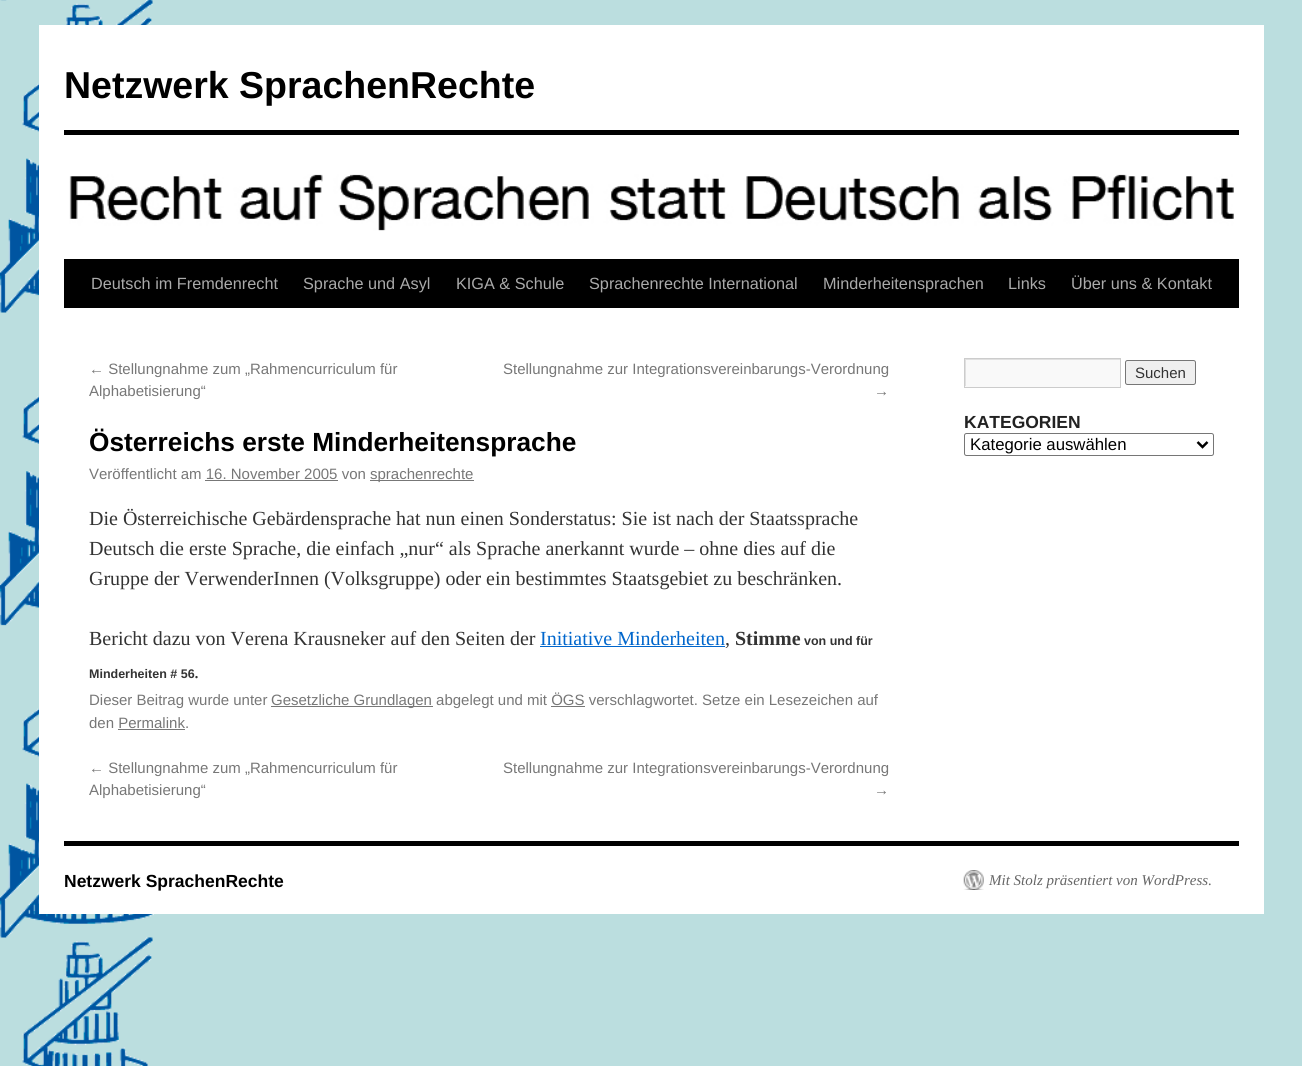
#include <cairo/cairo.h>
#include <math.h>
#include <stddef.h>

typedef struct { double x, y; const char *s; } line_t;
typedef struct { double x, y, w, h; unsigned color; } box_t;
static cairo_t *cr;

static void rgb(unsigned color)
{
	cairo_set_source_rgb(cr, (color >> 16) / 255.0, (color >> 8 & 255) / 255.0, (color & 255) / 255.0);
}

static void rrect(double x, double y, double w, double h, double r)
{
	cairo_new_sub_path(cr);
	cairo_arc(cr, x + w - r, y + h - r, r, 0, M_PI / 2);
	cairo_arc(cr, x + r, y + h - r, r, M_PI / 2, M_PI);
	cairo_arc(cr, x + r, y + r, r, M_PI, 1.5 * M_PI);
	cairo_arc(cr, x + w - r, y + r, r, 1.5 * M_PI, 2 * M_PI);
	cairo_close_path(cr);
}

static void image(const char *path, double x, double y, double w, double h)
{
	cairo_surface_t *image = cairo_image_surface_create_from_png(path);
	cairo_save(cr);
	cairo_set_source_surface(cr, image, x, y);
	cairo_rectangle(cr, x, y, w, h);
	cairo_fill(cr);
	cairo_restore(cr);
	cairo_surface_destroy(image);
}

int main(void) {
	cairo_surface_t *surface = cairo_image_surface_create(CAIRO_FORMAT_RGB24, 1302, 1066);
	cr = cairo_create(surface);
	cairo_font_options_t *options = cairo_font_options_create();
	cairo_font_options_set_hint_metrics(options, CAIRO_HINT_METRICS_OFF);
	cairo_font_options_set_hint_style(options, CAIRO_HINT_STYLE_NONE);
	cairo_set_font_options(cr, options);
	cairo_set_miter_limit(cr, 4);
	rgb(0xbbdedf);
	cairo_paint(cr);
	image("img/1.png", 0, 0, 154, 1066);
	{
		static const box_t items[] = {
			{39, 25, 1225, 889, 0xffffff},
			{64, 130, 1175, 5, 0x000000},
			{64, 259, 1175, 49, 0x000000},
		};
		for (size_t i = 0; i < sizeof items / sizeof *items; i++) {
			rgb(items[i].color);
			cairo_rectangle(cr, items[i].x, items[i].y, items[i].w, items[i].h);
			cairo_fill(cr);
		}
	}
	image("img/2.png", 69, 174, 1165, 57);
	{
		static const box_t items[] = {
			{370, 480, 104, 1, 0x777777},
			{205, 480, 133, 1, 0x777777},
			{540, 646, 185, 1, 0x0066cc},
			{271, 706, 162, 1, 0x777777},
			{551, 706, 34, 1, 0x777777},
			{118, 729, 67, 1, 0x777777},
			{965, 360, 155, 27, 0xf9f9f9},
		};
		for (size_t i = 0; i < sizeof items / sizeof *items; i++) {
			rgb(items[i].color);
			cairo_rectangle(cr, items[i].x, items[i].y, items[i].w, items[i].h);
			cairo_fill(cr);
		}
	}
	cairo_save(cr);
	cairo_rectangle(cr, 965, 359, 155, 27);
	cairo_clip(cr);
	rgb(0xe0e0e0);
	cairo_set_fill_rule(cr, CAIRO_FILL_RULE_EVEN_ODD);
	cairo_new_path(cr);
	cairo_move_to(cr, 841, 235);
	cairo_line_to(cr, 1244, 235);
	cairo_line_to(cr, 1244, 510);
	cairo_line_to(cr, 841, 510);
	cairo_close_path(cr);
	cairo_move_to(cr, 966, 360);
	cairo_line_to(cr, 1121, 360);
	cairo_line_to(cr, 1121, 388);
	cairo_line_to(cr, 966, 388);
	cairo_close_path(cr);
	cairo_fill(cr);
	cairo_restore(cr);
	cairo_rectangle(cr, 964.5, 358.5, 156, 29);
	rgb(0xcccccc);
	cairo_set_line_width(cr, 1);
	cairo_stroke(cr);
	rgb(0xefefef);
	rrect(1125.5, 360.5, 70, 24, 2);
	cairo_fill_preserve(cr);
	rgb(0x767676);
	cairo_stroke(cr);
	rrect(964.5, 433.5, 249, 22, 2);
	cairo_stroke(cr);
	cairo_new_path(cr);
	cairo_move_to(cr, 1197.5, 442);
	cairo_line_to(cr, 1202.5, 447);
	cairo_line_to(cr, 1207.5, 442);
	rgb(0x000000);
	cairo_set_line_width(cr, 2.5);
	cairo_stroke(cr);
	cairo_rectangle(cr, 64, 841, 1175, 5);
	cairo_fill(cr);
	image("img/3.png", 963, 870, 21, 20);
	cairo_select_font_face(cr, "Liberation Sans", CAIRO_FONT_SLANT_NORMAL, CAIRO_FONT_WEIGHT_BOLD);
	cairo_set_font_size(cr, 37.5);
	cairo_move_to(cr, 64, 98);
	cairo_show_text(cr, "Netzwerk SprachenRechte");
	cairo_select_font_face(cr, "Liberation Sans", CAIRO_FONT_SLANT_NORMAL, CAIRO_FONT_WEIGHT_NORMAL);
	cairo_set_font_size(cr, 16.25);
	rgb(0xaaaaaa);
	{
		static const line_t items[] = {
			{91, 289, "Deutsch im Fremdenrecht"},
			{303, 289, "Sprache und Asyl"},
			{456, 289, "KIGA & Schule"},
			{589, 289, "Sprachenrechte International"},
			{823, 289, "Minderheitensprachen"},
			{1008, 289, "Links"},
			{1071, 289, "Über uns & Kontakt"},
		};
		for (size_t i = 0; i < sizeof items / sizeof *items; i++) {
			cairo_move_to(cr, items[i].x, items[i].y);
			cairo_show_text(cr, items[i].s);
		}
	}
	cairo_set_font_size(cr, 15);
	rgb(0x777777);
	{
		static const line_t items[] = {
			{89, 374, "← Stellungnahme zum „Rahmencurriculum für"},
			{89, 396, "Alphabetisierung“"},
			{503, 374, "Stellungnahme zur Integrationsvereinbarungs-Verordnung"},
			{874, 396, "→"},
		};
		for (size_t i = 0; i < sizeof items / sizeof *items; i++) {
			cairo_move_to(cr, items[i].x, items[i].y);
			cairo_show_text(cr, items[i].s);
		}
	}
	cairo_select_font_face(cr, "Liberation Sans", CAIRO_FONT_SLANT_NORMAL, CAIRO_FONT_WEIGHT_BOLD);
	cairo_set_font_size(cr, 26.25);
	rgb(0x000000);
	cairo_move_to(cr, 89, 451);
	cairo_show_text(cr, "Österreichs erste Minderheitensprache");
	cairo_select_font_face(cr, "Liberation Sans", CAIRO_FONT_SLANT_NORMAL, CAIRO_FONT_WEIGHT_NORMAL);
	cairo_set_font_size(cr, 15);
	rgb(0x777777);
	cairo_move_to(cr, 89, 479);
	cairo_show_text(cr, "Veröffentlicht am 16. November 2005 von");
	cairo_move_to(cr, 370, 479);
	cairo_show_text(cr, "sprachenrechte");
	cairo_select_font_face(cr, "Liberation Serif", CAIRO_FONT_SLANT_NORMAL, CAIRO_FONT_WEIGHT_NORMAL);
	cairo_set_font_size(cr, 20);
	rgb(0x333333);
	{
		static const line_t items[] = {
			{89, 525, "Die Österreichische Gebärdensprache hat nun einen Sonderstatus: Sie ist nach der Staatssprache"},
			{89, 555, "Deutsch die erste Sprache, die einfach „nur“ als Sprache anerkannt wurde – ohne dies auf die"},
			{89, 585, "Gruppe der VerwenderInnen (Volksgruppe) oder ein bestimmtes Staatsgebiet zu beschränken."},
			{89, 645, "Bericht dazu von Verena Krausneker auf den Seiten der"},
		};
		for (size_t i = 0; i < sizeof items / sizeof *items; i++) {
			cairo_move_to(cr, items[i].x, items[i].y);
			cairo_show_text(cr, items[i].s);
		}
	}
	rgb(0x0066cc);
	cairo_move_to(cr, 540, 645);
	cairo_show_text(cr, "Initiative Minderheiten");
	rgb(0x333333);
	cairo_move_to(cr, 725, 645);
	cairo_show_text(cr, ",");
	cairo_select_font_face(cr, "Liberation Serif", CAIRO_FONT_SLANT_NORMAL, CAIRO_FONT_WEIGHT_BOLD);
	cairo_move_to(cr, 735, 645);
	cairo_show_text(cr, "Stimme");
	cairo_select_font_face(cr, "Liberation Sans", CAIRO_FONT_SLANT_NORMAL, CAIRO_FONT_WEIGHT_BOLD);
	cairo_set_font_size(cr, 12.5);
	cairo_move_to(cr, 804, 645);
	cairo_show_text(cr, "von und für");
	cairo_move_to(cr, 89, 678);
	cairo_show_text(cr, "Minderheiten # 56");
	cairo_select_font_face(cr, "Liberation Serif", CAIRO_FONT_SLANT_NORMAL, CAIRO_FONT_WEIGHT_NORMAL);
	cairo_set_font_size(cr, 20);
	cairo_move_to(cr, 194, 678);
	cairo_show_text(cr, ".");
	cairo_select_font_face(cr, "Liberation Sans", CAIRO_FONT_SLANT_NORMAL, CAIRO_FONT_WEIGHT_NORMAL);
	cairo_set_font_size(cr, 15);
	rgb(0x777777);
	{
		static const line_t items[] = {
			{89, 705, "Dieser Beitrag wurde unter"},
			{271, 705, "Gesetzliche Grundlagen abgelegt und mit ÖGS verschlagwortet. Setze ein Lesezeichen auf"},
			{89, 728, "den Permalink."},
			{89, 773, "← Stellungnahme zum „Rahmencurriculum für"},
			{89, 795, "Alphabetisierung“"},
			{503, 773, "Stellungnahme zur Integrationsvereinbarungs-Verordnung"},
			{874, 795, "→"},
		};
		for (size_t i = 0; i < sizeof items / sizeof *items; i++) {
			cairo_move_to(cr, items[i].x, items[i].y);
			cairo_show_text(cr, items[i].s);
		}
	}
	rgb(0x333333);
	cairo_move_to(cr, 1135, 378);
	cairo_show_text(cr, "Suchen");
	cairo_select_font_face(cr, "Liberation Sans", CAIRO_FONT_SLANT_NORMAL, CAIRO_FONT_WEIGHT_BOLD);
	cairo_set_font_size(cr, 17.5);
	rgb(0x222222);
	cairo_move_to(cr, 964, 428);
	cairo_show_text(cr, "KATEGORIEN");
	cairo_select_font_face(cr, "Liberation Sans", CAIRO_FONT_SLANT_NORMAL, CAIRO_FONT_WEIGHT_NORMAL);
	cairo_set_font_size(cr, 16.75);
	rgb(0x000000);
	cairo_move_to(cr, 970, 450);
	cairo_show_text(cr, "Kategorie auswählen");
	cairo_select_font_face(cr, "Liberation Sans", CAIRO_FONT_SLANT_NORMAL, CAIRO_FONT_WEIGHT_BOLD);
	cairo_set_font_size(cr, 17.5);
	cairo_move_to(cr, 64, 887);
	cairo_show_text(cr, "Netzwerk SprachenRechte");
	cairo_select_font_face(cr, "Liberation Serif", CAIRO_FONT_SLANT_ITALIC, CAIRO_FONT_WEIGHT_NORMAL);
	cairo_set_font_size(cr, 15);
	rgb(0x666666);
	cairo_move_to(cr, 989, 885);
	cairo_show_text(cr, "Mit Stolz präsentiert von WordPress.");
	cairo_surface_write_to_png(surface, "page.png");
	cairo_font_options_destroy(options);
	cairo_destroy(cr);
	cairo_surface_destroy(surface);
	return 0;
}
